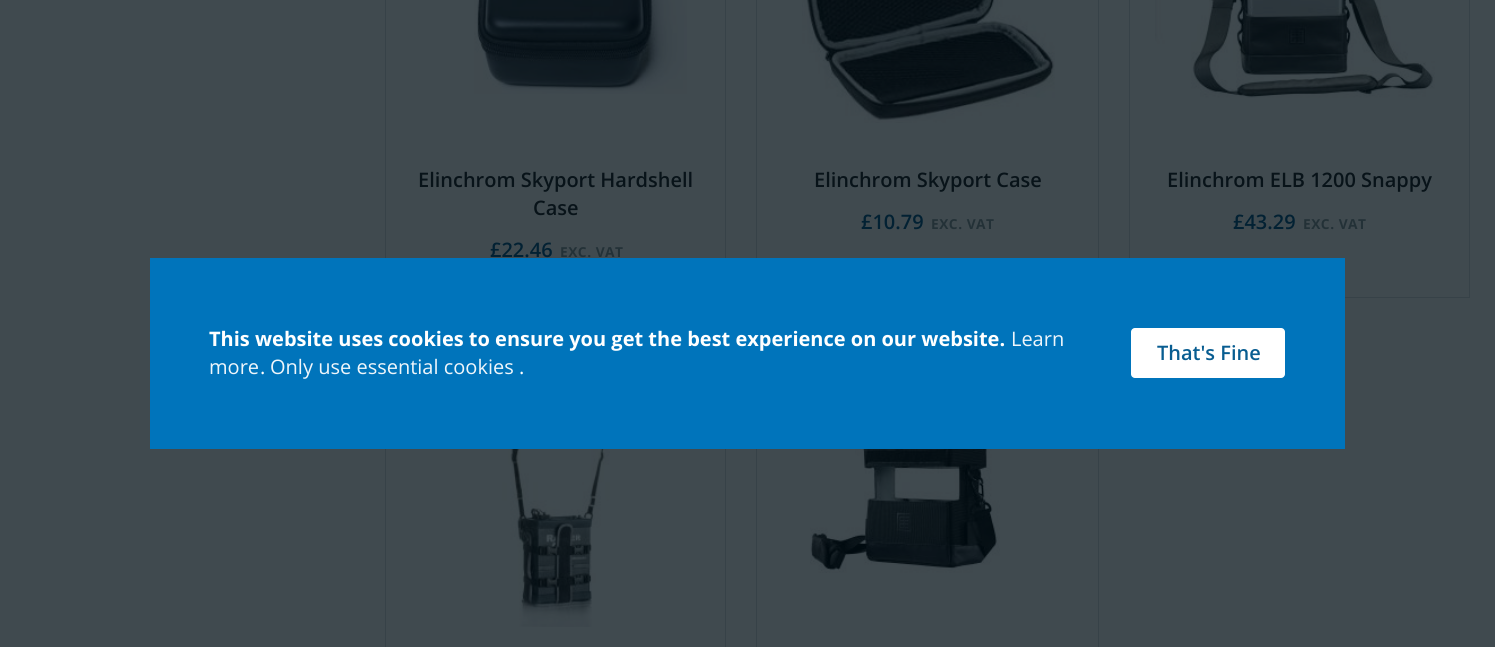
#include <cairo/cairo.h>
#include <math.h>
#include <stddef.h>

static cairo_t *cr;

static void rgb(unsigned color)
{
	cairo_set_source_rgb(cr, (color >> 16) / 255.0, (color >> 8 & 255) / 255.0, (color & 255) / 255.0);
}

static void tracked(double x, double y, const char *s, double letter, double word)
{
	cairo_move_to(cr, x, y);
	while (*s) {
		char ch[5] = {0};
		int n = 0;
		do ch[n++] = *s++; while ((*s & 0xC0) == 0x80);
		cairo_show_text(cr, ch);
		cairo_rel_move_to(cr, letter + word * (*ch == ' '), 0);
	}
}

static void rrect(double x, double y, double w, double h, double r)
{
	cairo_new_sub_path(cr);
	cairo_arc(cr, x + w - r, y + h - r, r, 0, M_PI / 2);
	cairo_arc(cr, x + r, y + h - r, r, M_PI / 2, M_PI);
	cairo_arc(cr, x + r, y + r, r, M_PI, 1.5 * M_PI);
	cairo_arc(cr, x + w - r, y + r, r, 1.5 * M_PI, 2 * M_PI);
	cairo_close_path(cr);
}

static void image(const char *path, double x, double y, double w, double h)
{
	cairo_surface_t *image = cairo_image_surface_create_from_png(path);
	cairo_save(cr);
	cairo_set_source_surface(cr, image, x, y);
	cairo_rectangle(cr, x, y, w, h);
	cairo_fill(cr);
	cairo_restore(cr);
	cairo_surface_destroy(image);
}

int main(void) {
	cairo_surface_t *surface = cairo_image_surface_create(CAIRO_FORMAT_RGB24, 1495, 647);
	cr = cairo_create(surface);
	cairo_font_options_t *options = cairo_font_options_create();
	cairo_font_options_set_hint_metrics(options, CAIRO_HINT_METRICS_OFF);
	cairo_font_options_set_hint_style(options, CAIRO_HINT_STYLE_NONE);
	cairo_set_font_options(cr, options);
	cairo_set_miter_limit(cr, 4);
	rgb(0x404a4f);
	cairo_paint(cr);
	cairo_rectangle(cr, 385.5, -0.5, 340, 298);
	rgb(0x374248);
	cairo_set_line_width(cr, 1);
	cairo_stroke(cr);
	image("img/1.png", 474, 0, 213, 94);
	cairo_rectangle(cr, 756.5, -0.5, 342, 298);
	cairo_stroke(cr);
	image("img/2.png", 802, 0, 253, 123);
	cairo_rectangle(cr, 1129.5, -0.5, 340, 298);
	cairo_stroke(cr);
	image("img/3.png", 1155, 0, 280, 98);
	cairo_rectangle(cr, 385.5, 311.5, 340, 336);
	cairo_stroke(cr);
	image("img/4.png", 502, 449, 117, 178);
	cairo_rectangle(cr, 756.5, 311.5, 342, 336);
	cairo_stroke(cr);
	image("img/5.png", 810, 449, 190, 124);
	rgb(0x0074bb);
	cairo_rectangle(cr, 150, 258, 1195, 191);
	cairo_fill(cr);
	rgb(0xffffff);
	rrect(1131, 328, 154, 50, 4);
	cairo_fill(cr);
	cairo_select_font_face(cr, "Open Sans SemiBold", CAIRO_FONT_SLANT_NORMAL, CAIRO_FONT_WEIGHT_NORMAL);
	cairo_set_font_size(cr, 20);
	rgb(0x081319);
	cairo_move_to(cr, 418, 187);
	cairo_show_text(cr, "Elinchrom Skyport Hardshell");
	cairo_move_to(cr, 533, 215);
	cairo_show_text(cr, "Case");
	rgb(0x022133);
	cairo_move_to(cr, 490, 257);
	cairo_show_text(cr, "£22.46");
	cairo_select_font_face(cr, "Open Sans", CAIRO_FONT_SLANT_NORMAL, CAIRO_FONT_WEIGHT_BOLD);
	cairo_set_font_size(cr, 13.75);
	rgb(0x233137);
	tracked(560, 257, "EXC. VAT", 0.5, 0);
	cairo_select_font_face(cr, "Open Sans SemiBold", CAIRO_FONT_SLANT_NORMAL, CAIRO_FONT_WEIGHT_NORMAL);
	cairo_set_font_size(cr, 20);
	rgb(0x081319);
	cairo_move_to(cr, 814, 187);
	cairo_show_text(cr, "Elinchrom Skyport Case");
	rgb(0x022133);
	cairo_move_to(cr, 861, 229);
	cairo_show_text(cr, "£10.79");
	cairo_select_font_face(cr, "Open Sans", CAIRO_FONT_SLANT_NORMAL, CAIRO_FONT_WEIGHT_BOLD);
	cairo_set_font_size(cr, 13.75);
	rgb(0x233137);
	tracked(931, 229, "EXC. VAT", 0.5, 0);
	cairo_select_font_face(cr, "Open Sans SemiBold", CAIRO_FONT_SLANT_NORMAL, CAIRO_FONT_WEIGHT_NORMAL);
	cairo_set_font_size(cr, 20);
	rgb(0x081319);
	cairo_move_to(cr, 1167, 187);
	cairo_show_text(cr, "Elinchrom ELB 1200 Snappy");
	rgb(0x022133);
	cairo_move_to(cr, 1233, 229);
	cairo_show_text(cr, "£43.29");
	cairo_select_font_face(cr, "Open Sans", CAIRO_FONT_SLANT_NORMAL, CAIRO_FONT_WEIGHT_BOLD);
	cairo_set_font_size(cr, 13.75);
	rgb(0x233137);
	tracked(1303, 229, "EXC. VAT", 0.5, 0);
	cairo_set_font_size(cr, 20);
	rgb(0xffffff);
	cairo_move_to(cr, 209, 346);
	cairo_show_text(cr, "This website uses cookies to ensure you get the best experience on our website.");
	cairo_select_font_face(cr, "Open Sans", CAIRO_FONT_SLANT_NORMAL, CAIRO_FONT_WEIGHT_NORMAL);
	rgb(0xeff6fb);
	cairo_move_to(cr, 1011, 346);
	cairo_show_text(cr, "Learn");
	cairo_move_to(cr, 209, 374);
	cairo_show_text(cr, "more");
	rgb(0xffffff);
	cairo_move_to(cr, 260, 374);
	cairo_show_text(cr, ".");
	rgb(0xeff6fb);
	cairo_move_to(cr, 270, 374);
	cairo_show_text(cr, "Only use essential cookies");
	rgb(0xffffff);
	cairo_move_to(cr, 519, 374);
	cairo_show_text(cr, ".");
	cairo_select_font_face(cr, "Open Sans SemiBold", CAIRO_FONT_SLANT_NORMAL, CAIRO_FONT_WEIGHT_NORMAL);
	rgb(0x085d91);
	cairo_move_to(cr, 1157, 360);
	cairo_show_text(cr, "That's Fine");
	cairo_surface_write_to_png(surface, "page.png");
	cairo_font_options_destroy(options);
	cairo_destroy(cr);
	cairo_surface_destroy(surface);
	return 0;
}
